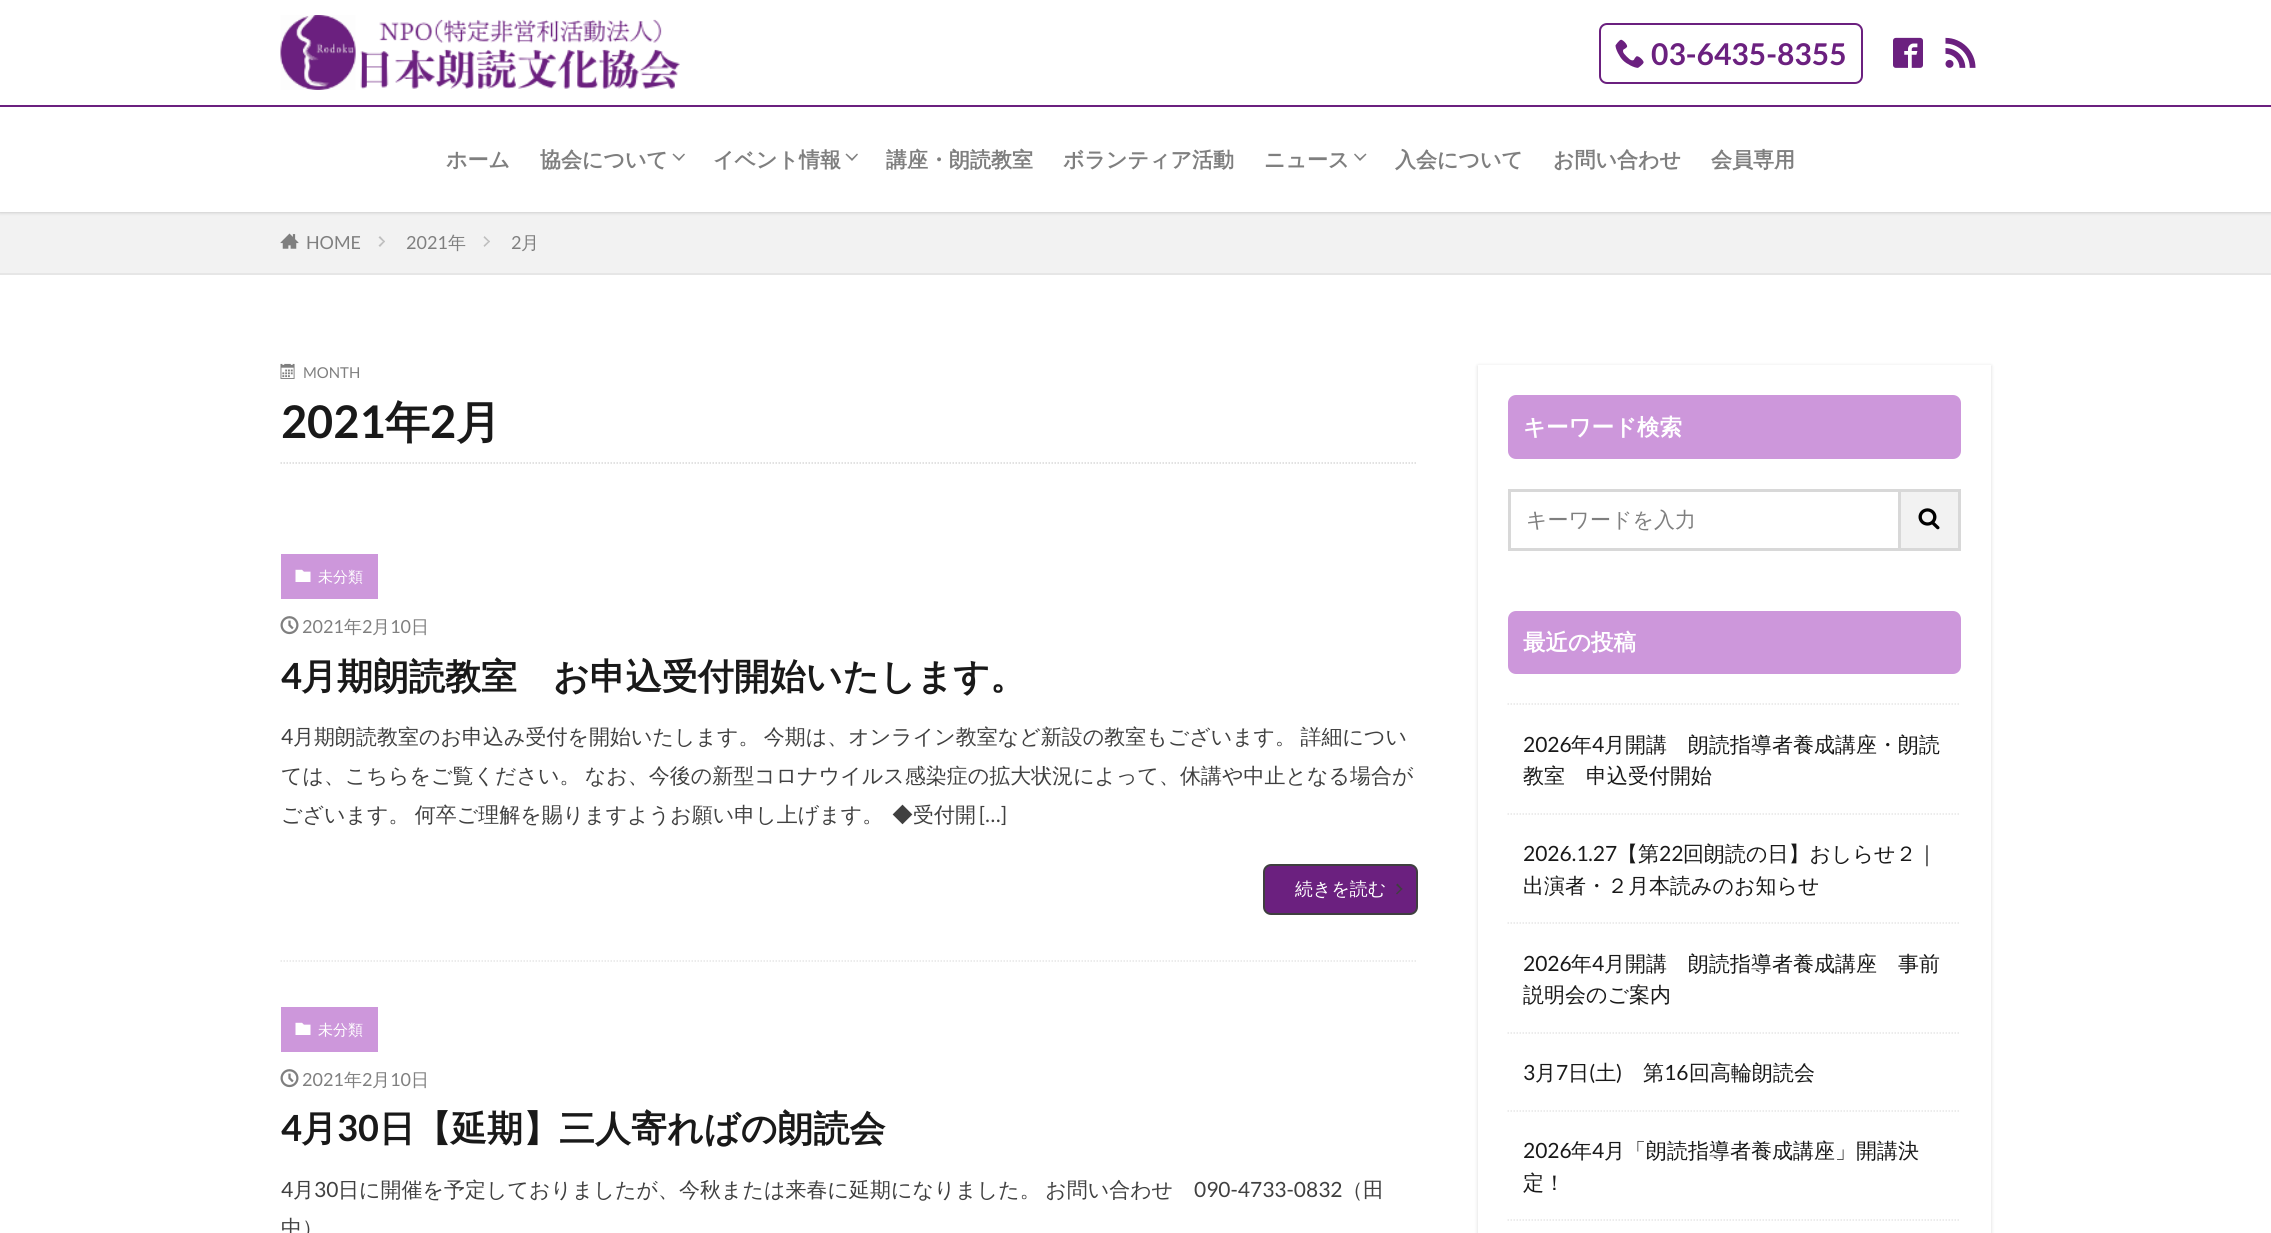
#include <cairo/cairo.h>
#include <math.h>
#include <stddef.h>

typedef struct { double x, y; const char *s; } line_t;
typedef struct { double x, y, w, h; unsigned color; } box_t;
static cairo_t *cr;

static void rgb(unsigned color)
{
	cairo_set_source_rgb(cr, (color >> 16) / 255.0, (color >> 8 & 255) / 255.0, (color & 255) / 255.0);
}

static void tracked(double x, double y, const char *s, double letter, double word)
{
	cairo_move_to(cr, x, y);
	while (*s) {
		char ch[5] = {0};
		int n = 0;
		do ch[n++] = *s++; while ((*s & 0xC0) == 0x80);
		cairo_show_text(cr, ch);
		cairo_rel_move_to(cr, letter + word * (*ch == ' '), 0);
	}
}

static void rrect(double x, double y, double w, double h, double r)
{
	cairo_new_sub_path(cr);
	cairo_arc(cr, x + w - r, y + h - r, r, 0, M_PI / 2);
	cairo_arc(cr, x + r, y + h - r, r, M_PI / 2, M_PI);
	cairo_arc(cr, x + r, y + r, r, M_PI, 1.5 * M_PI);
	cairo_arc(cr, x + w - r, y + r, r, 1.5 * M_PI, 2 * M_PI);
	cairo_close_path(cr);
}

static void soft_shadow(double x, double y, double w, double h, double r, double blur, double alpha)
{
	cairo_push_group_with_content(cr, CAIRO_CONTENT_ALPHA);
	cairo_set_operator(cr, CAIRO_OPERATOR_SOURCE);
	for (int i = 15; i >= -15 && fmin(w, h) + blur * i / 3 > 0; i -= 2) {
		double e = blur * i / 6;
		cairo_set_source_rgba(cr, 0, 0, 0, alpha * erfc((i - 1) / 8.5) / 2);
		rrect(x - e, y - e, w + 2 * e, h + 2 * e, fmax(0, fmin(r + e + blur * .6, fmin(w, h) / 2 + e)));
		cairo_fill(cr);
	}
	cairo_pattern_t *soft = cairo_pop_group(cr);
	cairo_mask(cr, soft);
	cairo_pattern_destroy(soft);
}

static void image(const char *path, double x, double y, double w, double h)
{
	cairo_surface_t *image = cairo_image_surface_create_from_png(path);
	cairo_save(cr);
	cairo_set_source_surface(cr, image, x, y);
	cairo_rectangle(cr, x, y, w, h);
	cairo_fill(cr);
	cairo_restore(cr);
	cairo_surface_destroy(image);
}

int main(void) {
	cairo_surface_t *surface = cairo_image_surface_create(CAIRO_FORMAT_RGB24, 2271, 1233);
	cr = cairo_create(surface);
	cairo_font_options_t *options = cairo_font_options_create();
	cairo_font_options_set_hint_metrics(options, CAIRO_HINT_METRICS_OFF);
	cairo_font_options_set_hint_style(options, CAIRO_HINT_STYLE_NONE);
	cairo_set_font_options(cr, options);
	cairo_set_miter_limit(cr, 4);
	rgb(0xffffff);
	cairo_paint(cr);
	rgb(0xf2f2f2);
	cairo_rectangle(cr, 0, 212, 2271, 61);
	cairo_fill(cr);
	rgb(0x000000);
	soft_shadow(0, 2, 2271, 211, 0, 1.5, 0.15);
	rgb(0xffffff);
	cairo_rectangle(cr, 0, 0, 2271, 212);
	cairo_fill(cr);
	image("img/1.png", 280, 15, 400, 75);
	rrect(1600, 24, 262, 59, 7);
	rgb(0x6b207f);
	cairo_stroke(cr);
	image("img/2.png", 1615, 39, 29, 29);
	image("img/3.png", 1893, 37, 30, 31);
	image("img/4.png", 1945, 37, 31, 31);
	cairo_rectangle(cr, 0, 105, 2271, 2);
	cairo_fill(cr);
	rgb(0x808080);
	cairo_new_path(cr);
	cairo_move_to(cr, 685, 154.5);
	cairo_line_to(cr, 679, 161);
	cairo_line_to(cr, 679, 158.5);
	cairo_line_to(cr, 684, 153.5);
	cairo_close_path(cr);
	cairo_move_to(cr, 679, 161);
	cairo_line_to(cr, 672.5, 154.5);
	cairo_line_to(cr, 673.5, 153.5);
	cairo_line_to(cr, 679, 158.5);
	cairo_close_path(cr);
	cairo_fill(cr);
	cairo_new_path(cr);
	cairo_move_to(cr, 858, 154.5);
	cairo_line_to(cr, 852, 161);
	cairo_line_to(cr, 852, 158.5);
	cairo_line_to(cr, 857, 153.5);
	cairo_close_path(cr);
	cairo_move_to(cr, 852, 161);
	cairo_line_to(cr, 845.5, 154.5);
	cairo_line_to(cr, 846.5, 153.5);
	cairo_line_to(cr, 852, 158.5);
	cairo_close_path(cr);
	cairo_fill(cr);
	cairo_new_path(cr);
	cairo_move_to(cr, 1366.5, 154.5);
	cairo_line_to(cr, 1360, 161);
	cairo_line_to(cr, 1360, 158.5);
	cairo_line_to(cr, 1365.5, 153.5);
	cairo_close_path(cr);
	cairo_move_to(cr, 1360, 161);
	cairo_line_to(cr, 1354, 154.5);
	cairo_line_to(cr, 1355, 153.5);
	cairo_line_to(cr, 1360, 158.5);
	cairo_close_path(cr);
	cairo_fill(cr);
	rgb(0xe6e6e6);
	cairo_rectangle(cr, 0, 273, 2271, 2);
	cairo_fill(cr);
	image("img/5.png", 280, 233, 19, 16);
	rgb(0xbfbfbf);
	cairo_new_path(cr);
	cairo_move_to(cr, 380, 236);
	cairo_line_to(cr, 385, 241.5);
	cairo_line_to(cr, 384, 242.5);
	cairo_line_to(cr, 378.5, 237.5);
	cairo_close_path(cr);
	cairo_fill(cr);
	cairo_new_path(cr);
	cairo_move_to(cr, 384, 240.5);
	cairo_line_to(cr, 385, 241.5);
	cairo_line_to(cr, 380, 247);
	cairo_line_to(cr, 378.5, 245.5);
	cairo_close_path(cr);
	cairo_fill(cr);
	cairo_new_path(cr);
	cairo_move_to(cr, 484.5, 236);
	cairo_line_to(cr, 490, 241.5);
	cairo_line_to(cr, 489, 242.5);
	cairo_line_to(cr, 483.5, 237.5);
	cairo_close_path(cr);
	cairo_fill(cr);
	cairo_new_path(cr);
	cairo_move_to(cr, 489, 240.5);
	cairo_line_to(cr, 490, 241.5);
	cairo_line_to(cr, 484.5, 247);
	cairo_line_to(cr, 483.5, 245.5);
	cairo_close_path(cr);
	cairo_fill(cr);
	image("img/6.png", 280, 363, 15, 16);
	cairo_new_path(cr);
	cairo_move_to(cr, 280.5, 463);
	cairo_line_to(cr, 1417.5, 463);
	rgb(0xd8d8d8);
	cairo_set_line_width(cr, 1.5);
	cairo_set_dash(cr, (double[]){1.5, 1.5}, 2, 0);
	cairo_stroke(cr);
	cairo_new_path(cr);
	cairo_move_to(cr, 280.5, 961);
	cairo_line_to(cr, 1417.5, 961);
	rgb(0xe6e6e6);
	cairo_stroke(cr);
	rgb(0xcd97db);
	cairo_rectangle(cr, 281, 554, 97, 45);
	cairo_fill(cr);
	image("img/7.png", 295, 569, 16, 13);
	image("img/8.png", 280, 616, 19, 19);
	rgb(0x6b207f);
	rrect(1264, 865, 153, 49, 7);
	cairo_fill_preserve(cr);
	rgb(0x3f3f3f);
	cairo_set_line_width(cr, 2);
	cairo_set_dash(cr, NULL, 0, 0);
	cairo_stroke(cr);
	cairo_new_path(cr);
	cairo_move_to(cr, 1397.5, 883.5);
	cairo_line_to(cr, 1402.5, 889);
	cairo_line_to(cr, 1401.5, 890);
	cairo_line_to(cr, 1396, 885);
	cairo_close_path(cr);
	cairo_fill(cr);
	cairo_new_path(cr);
	cairo_move_to(cr, 1401.5, 888);
	cairo_line_to(cr, 1402.5, 889);
	cairo_line_to(cr, 1397, 894.5);
	cairo_line_to(cr, 1396, 893.5);
	cairo_close_path(cr);
	cairo_fill(cr);
	rgb(0xcd97db);
	cairo_rectangle(cr, 281, 1007, 97, 45);
	cairo_fill(cr);
	image("img/7.png", 295, 1022, 16, 13);
	image("img/8.png", 280, 1069, 19, 19);
	rgb(0x000000);
	soft_shadow(1478, 366, 513, 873, 0, 2, 0.15);
	rgb(0xffffff);
	cairo_rectangle(cr, 1478, 365, 513, 868);
	cairo_fill(cr);
	rgb(0xcd97db);
	rrect(1508, 395, 453, 64, 8);
	cairo_fill(cr);
	cairo_rectangle(cr, 1509.5, 490.5, 390, 59);
	rgb(0xd8d8d8);
	cairo_set_line_width(cr, 3);
	cairo_stroke(cr);
	{
		static const box_t items[] = {
			{1901, 492, 57, 56, 0xf2f2f2},
			{1901, 489, 60, 3, 0xd8d8d8},
			{1958, 489, 3, 62, 0xd8d8d8},
			{1901, 548, 60, 3, 0xd8d8d8},
		};
		for (size_t i = 0; i < sizeof items / sizeof *items; i++) {
			rgb(items[i].color);
			cairo_rectangle(cr, items[i].x, items[i].y, items[i].w, items[i].h);
			cairo_fill(cr);
		}
	}
	image("img/9.png", 1918, 508, 22, 22);
	rgb(0xcd97db);
	rrect(1508, 611, 453, 63, 8);
	cairo_fill(cr);
	cairo_new_path(cr);
	cairo_move_to(cr, 1507.5, 704);
	cairo_line_to(cr, 1960.5, 704);
	rgb(0xe6e6e6);
	cairo_set_line_width(cr, 1.5);
	cairo_set_dash(cr, (double[]){1.5, 1.5}, 2, 0);
	cairo_stroke(cr);
	cairo_new_path(cr);
	cairo_move_to(cr, 1507.5, 814);
	cairo_line_to(cr, 1960.5, 814);
	cairo_stroke(cr);
	cairo_new_path(cr);
	cairo_move_to(cr, 1507.5, 923);
	cairo_line_to(cr, 1960.5, 923);
	cairo_stroke(cr);
	cairo_new_path(cr);
	cairo_move_to(cr, 1507.5, 1033);
	cairo_line_to(cr, 1960.5, 1033);
	cairo_stroke(cr);
	cairo_new_path(cr);
	cairo_move_to(cr, 1507.5, 1111);
	cairo_line_to(cr, 1960.5, 1111);
	cairo_stroke(cr);
	cairo_new_path(cr);
	cairo_move_to(cr, 1507.5, 1220);
	cairo_line_to(cr, 1960.5, 1220);
	cairo_stroke(cr);
	cairo_select_font_face(cr, "Lato", CAIRO_FONT_SLANT_NORMAL, CAIRO_FONT_WEIGHT_BOLD);
	cairo_set_font_size(cr, 30);
	rgb(0x6b207f);
	cairo_move_to(cr, 1651, 65);
	cairo_show_text(cr, "03-6435-8355");
	cairo_select_font_face(cr, "WenQuanYi Zen Hei", CAIRO_FONT_SLANT_NORMAL, CAIRO_FONT_WEIGHT_BOLD);
	cairo_set_font_size(cr, 21);
	rgb(0x7f7f7f);
	{
		static const line_t items[] = {
			{446, 167, "ホーム"},
			{540, 167, "協会について"},
			{713, 167, "イベント情報"},
			{886, 167, "講座・朗読教室"},
			{1063, 167, "ボランティア活動"},
			{1264, 167, "ニュース"},
			{1395, 167, "入会について"},
			{1553, 167, "お問い合わせ"},
			{1711, 167, "会員専用"},
		};
		for (size_t i = 0; i < sizeof items / sizeof *items; i++) {
			cairo_move_to(cr, items[i].x, items[i].y);
			cairo_show_text(cr, items[i].s);
		}
	}
	cairo_select_font_face(cr, "Lato", CAIRO_FONT_SLANT_NORMAL, CAIRO_FONT_WEIGHT_NORMAL);
	cairo_set_font_size(cr, 18);
	cairo_move_to(cr, 306, 249);
	cairo_show_text(cr, "HOME");
	cairo_move_to(cr, 406, 249);
	cairo_show_text(cr, "2021");
	cairo_select_font_face(cr, "WenQuanYi Zen Hei Medium", CAIRO_FONT_SLANT_NORMAL, CAIRO_FONT_WEIGHT_NORMAL);
	cairo_move_to(cr, 448, 249);
	cairo_show_text(cr, "年");
	cairo_select_font_face(cr, "Lato", CAIRO_FONT_SLANT_NORMAL, CAIRO_FONT_WEIGHT_NORMAL);
	cairo_move_to(cr, 511, 249);
	cairo_show_text(cr, "2");
	cairo_select_font_face(cr, "WenQuanYi Zen Hei Medium", CAIRO_FONT_SLANT_NORMAL, CAIRO_FONT_WEIGHT_NORMAL);
	cairo_move_to(cr, 521, 249);
	cairo_show_text(cr, "月");
	cairo_select_font_face(cr, "Lato", CAIRO_FONT_SLANT_NORMAL, CAIRO_FONT_WEIGHT_NORMAL);
	cairo_set_font_size(cr, 15);
	cairo_move_to(cr, 303, 378);
	cairo_show_text(cr, "MONTH");
	cairo_select_font_face(cr, "Lato", CAIRO_FONT_SLANT_NORMAL, CAIRO_FONT_WEIGHT_BOLD);
	cairo_set_font_size(cr, 45);
	rgb(0x191919);
	cairo_move_to(cr, 281, 438);
	cairo_show_text(cr, "2021");
	cairo_select_font_face(cr, "WenQuanYi Zen Hei", CAIRO_FONT_SLANT_NORMAL, CAIRO_FONT_WEIGHT_BOLD);
	cairo_move_to(cr, 385, 438);
	cairo_show_text(cr, "年");
	cairo_select_font_face(cr, "Lato", CAIRO_FONT_SLANT_NORMAL, CAIRO_FONT_WEIGHT_BOLD);
	cairo_move_to(cr, 430, 438);
	cairo_show_text(cr, "2");
	cairo_select_font_face(cr, "WenQuanYi Zen Hei", CAIRO_FONT_SLANT_NORMAL, CAIRO_FONT_WEIGHT_BOLD);
	cairo_move_to(cr, 456, 438);
	cairo_show_text(cr, "月");
	cairo_select_font_face(cr, "WenQuanYi Zen Hei Medium", CAIRO_FONT_SLANT_NORMAL, CAIRO_FONT_WEIGHT_NORMAL);
	cairo_set_font_size(cr, 15);
	rgb(0xffffff);
	cairo_move_to(cr, 318, 582);
	cairo_show_text(cr, "未分類");
	cairo_select_font_face(cr, "Lato", CAIRO_FONT_SLANT_NORMAL, CAIRO_FONT_WEIGHT_NORMAL);
	cairo_set_font_size(cr, 18);
	rgb(0x7f7f7f);
	cairo_move_to(cr, 302, 633);
	cairo_show_text(cr, "2021");
	cairo_select_font_face(cr, "WenQuanYi Zen Hei Medium", CAIRO_FONT_SLANT_NORMAL, CAIRO_FONT_WEIGHT_NORMAL);
	cairo_move_to(cr, 344, 633);
	cairo_show_text(cr, "年");
	cairo_select_font_face(cr, "Lato", CAIRO_FONT_SLANT_NORMAL, CAIRO_FONT_WEIGHT_NORMAL);
	cairo_move_to(cr, 362, 633);
	cairo_show_text(cr, "2");
	cairo_select_font_face(cr, "WenQuanYi Zen Hei Medium", CAIRO_FONT_SLANT_NORMAL, CAIRO_FONT_WEIGHT_NORMAL);
	cairo_move_to(cr, 372, 633);
	cairo_show_text(cr, "月");
	cairo_select_font_face(cr, "Lato", CAIRO_FONT_SLANT_NORMAL, CAIRO_FONT_WEIGHT_NORMAL);
	cairo_move_to(cr, 390, 633);
	cairo_show_text(cr, "10");
	cairo_select_font_face(cr, "WenQuanYi Zen Hei Medium", CAIRO_FONT_SLANT_NORMAL, CAIRO_FONT_WEIGHT_NORMAL);
	cairo_move_to(cr, 411, 633);
	cairo_show_text(cr, "日");
	cairo_select_font_face(cr, "Lato", CAIRO_FONT_SLANT_NORMAL, CAIRO_FONT_WEIGHT_BOLD);
	cairo_set_font_size(cr, 36);
	rgb(0x191919);
	cairo_move_to(cr, 281, 689);
	cairo_show_text(cr, "4");
	cairo_select_font_face(cr, "WenQuanYi Zen Hei", CAIRO_FONT_SLANT_NORMAL, CAIRO_FONT_WEIGHT_BOLD);
	cairo_move_to(cr, 301, 689);
	cairo_show_text(cr, "月期朗読教室　お申込受付開始いたします。");
	cairo_select_font_face(cr, "Lato", CAIRO_FONT_SLANT_NORMAL, CAIRO_FONT_WEIGHT_NORMAL);
	cairo_set_font_size(cr, 21);
	rgb(0x404040);
	cairo_move_to(cr, 281, 744);
	cairo_show_text(cr, "4");
	cairo_select_font_face(cr, "WenQuanYi Zen Hei Medium", CAIRO_FONT_SLANT_NORMAL, CAIRO_FONT_WEIGHT_NORMAL);
	tracked(293, 744, "月期朗読教室のお申込み受付を開始いたします。 今期は、オンライン教室など新設の教室もございます。 詳細につい", 0, -2);
	tracked(281, 783, "ては、こちらをご覧ください。 なお、今後の新型コロナウイルス感染症の拡大状況によって、休講や中止となる場合が", 0, -2);
	tracked(281, 822, "ございます。 何卒ご理解を賜りますようお願い申し上げます。", 0, -1);
	cairo_move_to(cr, 892, 822);
	cairo_show_text(cr, "◆受付開");
	cairo_select_font_face(cr, "Lato", CAIRO_FONT_SLANT_NORMAL, CAIRO_FONT_WEIGHT_NORMAL);
	cairo_move_to(cr, 979, 822);
	cairo_show_text(cr, "[…]");
	cairo_select_font_face(cr, "WenQuanYi Zen Hei Medium", CAIRO_FONT_SLANT_NORMAL, CAIRO_FONT_WEIGHT_NORMAL);
	cairo_set_font_size(cr, 18);
	rgb(0xffffff);
	cairo_move_to(cr, 1295, 895);
	cairo_show_text(cr, "続きを読む");
	cairo_set_font_size(cr, 15);
	cairo_move_to(cr, 318, 1035);
	cairo_show_text(cr, "未分類");
	cairo_select_font_face(cr, "Lato", CAIRO_FONT_SLANT_NORMAL, CAIRO_FONT_WEIGHT_NORMAL);
	cairo_set_font_size(cr, 18);
	rgb(0x7f7f7f);
	cairo_move_to(cr, 302, 1086);
	cairo_show_text(cr, "2021");
	cairo_select_font_face(cr, "WenQuanYi Zen Hei Medium", CAIRO_FONT_SLANT_NORMAL, CAIRO_FONT_WEIGHT_NORMAL);
	cairo_move_to(cr, 344, 1086);
	cairo_show_text(cr, "年");
	cairo_select_font_face(cr, "Lato", CAIRO_FONT_SLANT_NORMAL, CAIRO_FONT_WEIGHT_NORMAL);
	cairo_move_to(cr, 362, 1086);
	cairo_show_text(cr, "2");
	cairo_select_font_face(cr, "WenQuanYi Zen Hei Medium", CAIRO_FONT_SLANT_NORMAL, CAIRO_FONT_WEIGHT_NORMAL);
	cairo_move_to(cr, 372, 1086);
	cairo_show_text(cr, "月");
	cairo_select_font_face(cr, "Lato", CAIRO_FONT_SLANT_NORMAL, CAIRO_FONT_WEIGHT_NORMAL);
	cairo_move_to(cr, 390, 1086);
	cairo_show_text(cr, "10");
	cairo_select_font_face(cr, "WenQuanYi Zen Hei Medium", CAIRO_FONT_SLANT_NORMAL, CAIRO_FONT_WEIGHT_NORMAL);
	cairo_move_to(cr, 411, 1086);
	cairo_show_text(cr, "日");
	cairo_select_font_face(cr, "Lato", CAIRO_FONT_SLANT_NORMAL, CAIRO_FONT_WEIGHT_BOLD);
	cairo_set_font_size(cr, 36);
	rgb(0x191919);
	cairo_move_to(cr, 281, 1141);
	cairo_show_text(cr, "4");
	cairo_select_font_face(cr, "WenQuanYi Zen Hei", CAIRO_FONT_SLANT_NORMAL, CAIRO_FONT_WEIGHT_BOLD);
	cairo_move_to(cr, 301, 1141);
	cairo_show_text(cr, "月");
	cairo_select_font_face(cr, "Lato", CAIRO_FONT_SLANT_NORMAL, CAIRO_FONT_WEIGHT_BOLD);
	cairo_move_to(cr, 337, 1141);
	cairo_show_text(cr, "30");
	cairo_select_font_face(cr, "WenQuanYi Zen Hei", CAIRO_FONT_SLANT_NORMAL, CAIRO_FONT_WEIGHT_BOLD);
	cairo_move_to(cr, 379, 1141);
	cairo_show_text(cr, "日【延期】三人寄ればの朗読会");
	cairo_select_font_face(cr, "Lato", CAIRO_FONT_SLANT_NORMAL, CAIRO_FONT_WEIGHT_NORMAL);
	cairo_set_font_size(cr, 21);
	rgb(0x404040);
	cairo_move_to(cr, 281, 1197);
	cairo_show_text(cr, "4");
	cairo_select_font_face(cr, "WenQuanYi Zen Hei Medium", CAIRO_FONT_SLANT_NORMAL, CAIRO_FONT_WEIGHT_NORMAL);
	cairo_move_to(cr, 293, 1197);
	cairo_show_text(cr, "月");
	cairo_select_font_face(cr, "Lato", CAIRO_FONT_SLANT_NORMAL, CAIRO_FONT_WEIGHT_NORMAL);
	cairo_move_to(cr, 314, 1197);
	cairo_show_text(cr, "30");
	cairo_select_font_face(cr, "WenQuanYi Zen Hei Medium", CAIRO_FONT_SLANT_NORMAL, CAIRO_FONT_WEIGHT_NORMAL);
	tracked(338, 1197, "日に開催を予定しておりましたが、今秋または来春に延期になりました。 お問い合わせ", 0, -2);
	cairo_select_font_face(cr, "Lato", CAIRO_FONT_SLANT_NORMAL, CAIRO_FONT_WEIGHT_NORMAL);
	cairo_move_to(cr, 1194, 1197);
	cairo_show_text(cr, "090-4733-0832");
	cairo_select_font_face(cr, "WenQuanYi Zen Hei Medium", CAIRO_FONT_SLANT_NORMAL, CAIRO_FONT_WEIGHT_NORMAL);
	cairo_move_to(cr, 1342, 1197);
	cairo_show_text(cr, "（田");
	cairo_move_to(cr, 281, 1235);
	cairo_show_text(cr, "中）");
	cairo_select_font_face(cr, "WenQuanYi Zen Hei", CAIRO_FONT_SLANT_NORMAL, CAIRO_FONT_WEIGHT_BOLD);
	cairo_set_font_size(cr, 22.5);
	rgb(0xffffff);
	cairo_move_to(cr, 1523, 435);
	cairo_show_text(cr, "キーワード検索");
	cairo_select_font_face(cr, "WenQuanYi Zen Hei Medium", CAIRO_FONT_SLANT_NORMAL, CAIRO_FONT_WEIGHT_NORMAL);
	cairo_set_font_size(cr, 21);
	rgb(0x7f7f7f);
	cairo_move_to(cr, 1526, 527);
	cairo_show_text(cr, "キーワードを入力");
	cairo_select_font_face(cr, "WenQuanYi Zen Hei", CAIRO_FONT_SLANT_NORMAL, CAIRO_FONT_WEIGHT_BOLD);
	cairo_set_font_size(cr, 22.5);
	rgb(0xffffff);
	cairo_move_to(cr, 1523, 650);
	cairo_show_text(cr, "最近の投稿");
	cairo_select_font_face(cr, "Lato", CAIRO_FONT_SLANT_NORMAL, CAIRO_FONT_WEIGHT_NORMAL);
	cairo_set_font_size(cr, 21);
	rgb(0x191919);
	cairo_move_to(cr, 1523, 752);
	cairo_show_text(cr, "2026");
	cairo_select_font_face(cr, "WenQuanYi Zen Hei Medium", CAIRO_FONT_SLANT_NORMAL, CAIRO_FONT_WEIGHT_NORMAL);
	cairo_move_to(cr, 1571, 752);
	cairo_show_text(cr, "年");
	cairo_select_font_face(cr, "Lato", CAIRO_FONT_SLANT_NORMAL, CAIRO_FONT_WEIGHT_NORMAL);
	cairo_move_to(cr, 1592, 752);
	cairo_show_text(cr, "4");
	cairo_select_font_face(cr, "WenQuanYi Zen Hei Medium", CAIRO_FONT_SLANT_NORMAL, CAIRO_FONT_WEIGHT_NORMAL);
	cairo_move_to(cr, 1604, 752);
	cairo_show_text(cr, "月開講　朗読指導者養成講座・朗読");
	cairo_move_to(cr, 1523, 783);
	cairo_show_text(cr, "教室　申込受付開始");
	cairo_select_font_face(cr, "Lato", CAIRO_FONT_SLANT_NORMAL, CAIRO_FONT_WEIGHT_NORMAL);
	cairo_move_to(cr, 1523, 861);
	cairo_show_text(cr, "2026.1.27");
	cairo_select_font_face(cr, "WenQuanYi Zen Hei Medium", CAIRO_FONT_SLANT_NORMAL, CAIRO_FONT_WEIGHT_NORMAL);
	cairo_move_to(cr, 1617, 861);
	cairo_show_text(cr, "【第");
	cairo_select_font_face(cr, "Lato", CAIRO_FONT_SLANT_NORMAL, CAIRO_FONT_WEIGHT_NORMAL);
	cairo_move_to(cr, 1659, 861);
	cairo_show_text(cr, "22");
	cairo_select_font_face(cr, "WenQuanYi Zen Hei Medium", CAIRO_FONT_SLANT_NORMAL, CAIRO_FONT_WEIGHT_NORMAL);
	cairo_move_to(cr, 1683, 861);
	cairo_show_text(cr, "回朗読の日】おしらせ２｜");
	cairo_move_to(cr, 1523, 893);
	cairo_show_text(cr, "出演者・２月本読みのお知らせ");
	cairo_select_font_face(cr, "Lato", CAIRO_FONT_SLANT_NORMAL, CAIRO_FONT_WEIGHT_NORMAL);
	cairo_move_to(cr, 1523, 971);
	cairo_show_text(cr, "2026");
	cairo_select_font_face(cr, "WenQuanYi Zen Hei Medium", CAIRO_FONT_SLANT_NORMAL, CAIRO_FONT_WEIGHT_NORMAL);
	cairo_move_to(cr, 1571, 971);
	cairo_show_text(cr, "年");
	cairo_select_font_face(cr, "Lato", CAIRO_FONT_SLANT_NORMAL, CAIRO_FONT_WEIGHT_NORMAL);
	cairo_move_to(cr, 1592, 971);
	cairo_show_text(cr, "4");
	cairo_select_font_face(cr, "WenQuanYi Zen Hei Medium", CAIRO_FONT_SLANT_NORMAL, CAIRO_FONT_WEIGHT_NORMAL);
	{
		static const line_t items[] = {
			{1604, 971, "月開講　朗読指導者養成講座　事前"},
			{1523, 1002, "説明会のご案内"},
			{1535, 1080, "月"},
			{1568, 1080, "日 土"},
			{1689, 1080, "回高輪朗読会"},
		};
		for (size_t i = 0; i < sizeof items / sizeof *items; i++) {
			cairo_move_to(cr, items[i].x, items[i].y);
			cairo_show_text(cr, items[i].s);
		}
	}
	cairo_select_font_face(cr, "Lato", CAIRO_FONT_SLANT_NORMAL, CAIRO_FONT_WEIGHT_NORMAL);
	{
		static const line_t items[] = {
			{1523, 1080, "3"},
			{1556, 1080, "7"},
			{1589, 1080, "("},
			{1616, 1080, ")"},
		};
		for (size_t i = 0; i < sizeof items / sizeof *items; i++) {
			cairo_move_to(cr, items[i].x, items[i].y);
			cairo_show_text(cr, items[i].s);
		}
	}
	cairo_select_font_face(cr, "WenQuanYi Zen Hei Medium", CAIRO_FONT_SLANT_NORMAL, CAIRO_FONT_WEIGHT_NORMAL);
	cairo_move_to(cr, 1643, 1080);
	cairo_show_text(cr, "第");
	cairo_select_font_face(cr, "Lato", CAIRO_FONT_SLANT_NORMAL, CAIRO_FONT_WEIGHT_NORMAL);
	cairo_move_to(cr, 1664, 1080);
	cairo_show_text(cr, "16");
	cairo_move_to(cr, 1523, 1158);
	cairo_show_text(cr, "2026");
	cairo_select_font_face(cr, "WenQuanYi Zen Hei Medium", CAIRO_FONT_SLANT_NORMAL, CAIRO_FONT_WEIGHT_NORMAL);
	cairo_move_to(cr, 1571, 1158);
	cairo_show_text(cr, "年");
	cairo_select_font_face(cr, "Lato", CAIRO_FONT_SLANT_NORMAL, CAIRO_FONT_WEIGHT_NORMAL);
	cairo_move_to(cr, 1592, 1158);
	cairo_show_text(cr, "4");
	cairo_select_font_face(cr, "WenQuanYi Zen Hei Medium", CAIRO_FONT_SLANT_NORMAL, CAIRO_FONT_WEIGHT_NORMAL);
	cairo_move_to(cr, 1604, 1158);
	cairo_show_text(cr, "月「朗読指導者養成講座」開講決");
	cairo_move_to(cr, 1523, 1190);
	cairo_show_text(cr, "定！");
	cairo_surface_write_to_png(surface, "page.png");
	cairo_font_options_destroy(options);
	cairo_destroy(cr);
	cairo_surface_destroy(surface);
	return 0;
}
